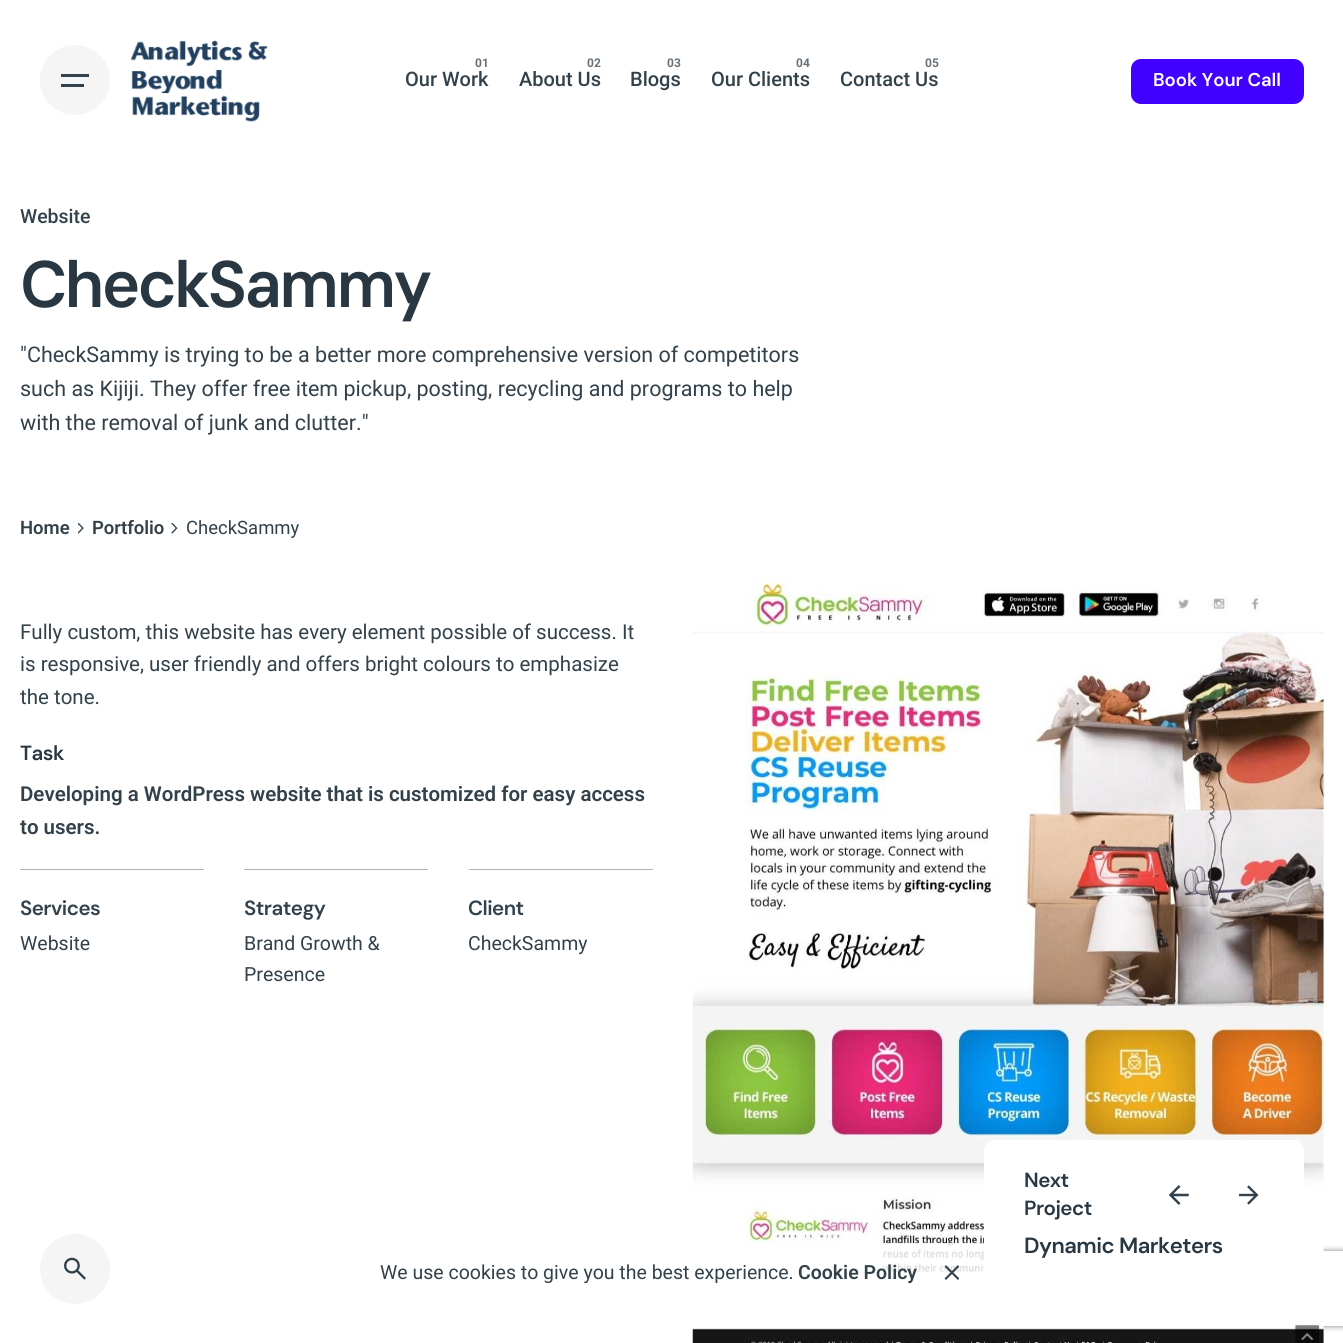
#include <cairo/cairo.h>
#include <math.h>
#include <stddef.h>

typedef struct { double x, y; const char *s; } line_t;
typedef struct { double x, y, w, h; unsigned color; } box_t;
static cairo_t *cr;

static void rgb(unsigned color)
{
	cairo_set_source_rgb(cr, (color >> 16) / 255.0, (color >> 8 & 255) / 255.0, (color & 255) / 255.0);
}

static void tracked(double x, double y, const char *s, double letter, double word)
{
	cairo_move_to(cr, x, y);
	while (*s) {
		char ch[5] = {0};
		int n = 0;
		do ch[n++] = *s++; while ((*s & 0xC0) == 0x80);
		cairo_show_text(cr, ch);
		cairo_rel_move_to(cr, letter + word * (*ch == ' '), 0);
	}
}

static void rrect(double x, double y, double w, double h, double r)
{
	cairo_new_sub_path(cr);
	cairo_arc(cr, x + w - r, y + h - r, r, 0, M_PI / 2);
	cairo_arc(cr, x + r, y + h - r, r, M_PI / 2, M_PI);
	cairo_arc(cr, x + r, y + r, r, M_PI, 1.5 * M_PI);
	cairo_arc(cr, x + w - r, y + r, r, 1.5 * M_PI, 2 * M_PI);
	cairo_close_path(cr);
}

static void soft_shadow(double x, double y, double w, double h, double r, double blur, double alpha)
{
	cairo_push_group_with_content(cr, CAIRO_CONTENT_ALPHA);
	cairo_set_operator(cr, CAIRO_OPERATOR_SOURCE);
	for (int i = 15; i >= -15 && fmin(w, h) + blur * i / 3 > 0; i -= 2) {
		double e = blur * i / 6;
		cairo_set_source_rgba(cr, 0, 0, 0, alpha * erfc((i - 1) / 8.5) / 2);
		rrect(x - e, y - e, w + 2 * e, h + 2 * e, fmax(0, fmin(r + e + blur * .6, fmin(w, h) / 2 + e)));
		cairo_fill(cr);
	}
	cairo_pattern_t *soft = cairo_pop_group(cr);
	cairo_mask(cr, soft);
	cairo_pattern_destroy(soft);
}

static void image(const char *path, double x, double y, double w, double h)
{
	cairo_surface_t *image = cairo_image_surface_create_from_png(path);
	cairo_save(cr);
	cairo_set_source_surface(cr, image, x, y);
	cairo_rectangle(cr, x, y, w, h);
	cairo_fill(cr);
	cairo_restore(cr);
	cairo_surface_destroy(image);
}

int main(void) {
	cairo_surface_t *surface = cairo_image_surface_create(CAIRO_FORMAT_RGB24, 1343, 1343);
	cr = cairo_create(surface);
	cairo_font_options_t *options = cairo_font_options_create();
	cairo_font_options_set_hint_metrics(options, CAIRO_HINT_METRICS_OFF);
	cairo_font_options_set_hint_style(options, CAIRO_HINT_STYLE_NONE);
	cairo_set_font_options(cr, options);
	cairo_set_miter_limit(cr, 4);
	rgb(0xffffff);
	cairo_paint(cr);
	rgb(0xf5f5f6);
	cairo_arc(cr, 75, 80, 35, 0, 2 * M_PI);
	cairo_fill(cr);
	rgb(0x32414b);
	cairo_rectangle(cr, 61, 74, 28, 3);
	cairo_fill(cr);
	cairo_rectangle(cr, 61, 84, 23, 3);
	cairo_fill(cr);
	image("img/1.png", 130, 40, 138, 82);
	rgb(0x4200ff);
	rrect(1131, 59, 173, 45, 10);
	cairo_fill(cr);
	image("img/2.png", 78, 523, 6, 11);
	image("img/3.png", 171, 523, 7, 11);
	{
		static const box_t items[] = {
			{20, 869, 184, 1, 0xb2b2b3},
			{244, 869, 184, 1, 0xb2b2b3},
			{469, 869, 184, 1, 0xb2b2b3},
		};
		for (size_t i = 0; i < sizeof items / sizeof *items; i++) {
			rgb(items[i].color);
			cairo_rectangle(cr, items[i].x, items[i].y, items[i].w, items[i].h);
			cairo_fill(cr);
		}
	}
	cairo_save(cr);
	cairo_set_fill_rule(cr, CAIRO_FILL_RULE_EVEN_ODD);
	cairo_new_path(cr);
	cairo_move_to(cr, 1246, 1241);
	cairo_line_to(cr, 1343, 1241);
	cairo_line_to(cr, 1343, 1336);
	cairo_line_to(cr, 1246, 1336);
	cairo_close_path(cr);
	cairo_move_to(cr, 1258.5, 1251);
	cairo_line_to(cr, 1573.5, 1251);
	cairo_curve_to(cr, 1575, 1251, 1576, 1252, 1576, 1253.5);
	cairo_line_to(cr, 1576, 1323.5);
	cairo_curve_to(cr, 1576, 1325, 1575, 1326, 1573.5, 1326);
	cairo_line_to(cr, 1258.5, 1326);
	cairo_curve_to(cr, 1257, 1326, 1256, 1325, 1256, 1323.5);
	cairo_line_to(cr, 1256, 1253.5);
	cairo_curve_to(cr, 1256, 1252, 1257, 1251, 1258.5, 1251);
	cairo_close_path(cr);
	cairo_clip(cr);
	rgb(0x808080);
	soft_shadow(1256, 1251, 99, 75, 2.5, 3, 1);
	cairo_restore(cr);
	image("img/4.png", 692, 576, 632, 767);
	rgb(0xffffff);
	rrect(984, 1140, 320, 164, 10);
	cairo_fill(cr);
	image("img/5.png", 1169, 1185, 20, 20);
	image("img/6.png", 1239, 1185, 20, 20);
	rgb(0xf5f5f6);
	cairo_arc(cr, 75, 1269, 35, 0, 2 * M_PI);
	cairo_fill(cr);
	image("img/7.png", 64, 1257, 22, 23);
	cairo_set_source_rgba(cr, 1, 1, 1, 0.85);
	rrect(361, 1243, 623, 61, 10);
	cairo_fill(cr);
	image("img/8.png", 944, 1265, 15, 15);
	cairo_select_font_face(cr, "Roboto", CAIRO_FONT_SLANT_NORMAL, CAIRO_FONT_WEIGHT_BOLD);
	cairo_set_font_size(cr, 12);
	rgb(0x667178);
	cairo_move_to(cr, 475, 67);
	cairo_show_text(cr, "01");
	cairo_select_font_face(cr, "Roboto Medium", CAIRO_FONT_SLANT_NORMAL, CAIRO_FONT_WEIGHT_NORMAL);
	cairo_set_font_size(cr, 20);
	rgb(0x33414b);
	cairo_move_to(cr, 405, 86);
	cairo_show_text(cr, "Our Work");
	cairo_select_font_face(cr, "Roboto", CAIRO_FONT_SLANT_NORMAL, CAIRO_FONT_WEIGHT_BOLD);
	cairo_set_font_size(cr, 12);
	rgb(0x667178);
	cairo_move_to(cr, 587, 67);
	cairo_show_text(cr, "02");
	cairo_select_font_face(cr, "Roboto Medium", CAIRO_FONT_SLANT_NORMAL, CAIRO_FONT_WEIGHT_NORMAL);
	cairo_set_font_size(cr, 20);
	rgb(0x33414b);
	cairo_move_to(cr, 519, 86);
	cairo_show_text(cr, "About Us");
	cairo_select_font_face(cr, "Roboto", CAIRO_FONT_SLANT_NORMAL, CAIRO_FONT_WEIGHT_BOLD);
	cairo_set_font_size(cr, 12);
	rgb(0x667178);
	cairo_move_to(cr, 667, 67);
	cairo_show_text(cr, "03");
	cairo_select_font_face(cr, "Roboto Medium", CAIRO_FONT_SLANT_NORMAL, CAIRO_FONT_WEIGHT_NORMAL);
	cairo_set_font_size(cr, 20);
	rgb(0x33414b);
	cairo_move_to(cr, 630, 86);
	cairo_show_text(cr, "Blogs");
	cairo_select_font_face(cr, "Roboto", CAIRO_FONT_SLANT_NORMAL, CAIRO_FONT_WEIGHT_BOLD);
	cairo_set_font_size(cr, 12);
	rgb(0x667178);
	cairo_move_to(cr, 796, 67);
	cairo_show_text(cr, "04");
	cairo_select_font_face(cr, "Roboto Medium", CAIRO_FONT_SLANT_NORMAL, CAIRO_FONT_WEIGHT_NORMAL);
	cairo_set_font_size(cr, 20);
	rgb(0x33414b);
	cairo_move_to(cr, 711, 86);
	cairo_show_text(cr, "Our Clients");
	cairo_select_font_face(cr, "Roboto", CAIRO_FONT_SLANT_NORMAL, CAIRO_FONT_WEIGHT_BOLD);
	cairo_set_font_size(cr, 12);
	rgb(0x667178);
	cairo_move_to(cr, 925, 67);
	cairo_show_text(cr, "05");
	cairo_select_font_face(cr, "Roboto Medium", CAIRO_FONT_SLANT_NORMAL, CAIRO_FONT_WEIGHT_NORMAL);
	cairo_set_font_size(cr, 20);
	rgb(0x33414b);
	cairo_move_to(cr, 840, 86);
	cairo_show_text(cr, "Contact Us");
	cairo_select_font_face(cr, "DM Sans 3 SemiBold", CAIRO_FONT_SLANT_NORMAL, CAIRO_FONT_WEIGHT_NORMAL);
	cairo_set_font_size(cr, 18.5);
	rgb(0xffffff);
	cairo_move_to(cr, 1153, 86);
	cairo_show_text(cr, "Book Your Call");
	cairo_select_font_face(cr, "Roboto Medium", CAIRO_FONT_SLANT_NORMAL, CAIRO_FONT_WEIGHT_NORMAL);
	cairo_set_font_size(cr, 19.5);
	rgb(0x33414b);
	cairo_move_to(cr, 20, 223);
	cairo_show_text(cr, "Website");
	cairo_select_font_face(cr, "DM Sans SemiBold", CAIRO_FONT_SLANT_NORMAL, CAIRO_FONT_WEIGHT_NORMAL);
	cairo_set_font_size(cr, 65.5);
	rgb(0x283742);
	tracked(20, 307, "CheckSammy", -3, 0);
	cairo_select_font_face(cr, "Roboto", CAIRO_FONT_SLANT_NORMAL, CAIRO_FONT_WEIGHT_NORMAL);
	cairo_set_font_size(cr, 21.5);
	rgb(0x33414b);
	{
		static const line_t items[] = {
			{20, 362, "\"CheckSammy is trying to be a better more comprehensive version of competitors"},
			{20, 396, "such as Kijiji. They offer free item pickup, posting, recycling and programs to help"},
			{20, 430, "with the removal of junk and clutter.\""},
		};
		for (size_t i = 0; i < sizeof items / sizeof *items; i++) {
			cairo_move_to(cr, items[i].x, items[i].y);
			cairo_show_text(cr, items[i].s);
		}
	}
	cairo_select_font_face(cr, "Roboto SemiBold", CAIRO_FONT_SLANT_NORMAL, CAIRO_FONT_WEIGHT_NORMAL);
	cairo_set_font_size(cr, 18.5);
	cairo_move_to(cr, 20, 534);
	cairo_show_text(cr, "Home");
	cairo_move_to(cr, 92, 534);
	cairo_show_text(cr, "Portfolio");
	cairo_select_font_face(cr, "Roboto", CAIRO_FONT_SLANT_NORMAL, CAIRO_FONT_WEIGHT_NORMAL);
	cairo_move_to(cr, 186, 534);
	cairo_show_text(cr, "CheckSammy");
	cairo_set_font_size(cr, 20.5);
	{
		static const line_t items[] = {
			{20, 639, "Fully custom, this website has every element possible of success. It"},
			{20, 671, "is responsive, user friendly and offers bright colours to emphasize"},
			{20, 704, "the tone."},
		};
		for (size_t i = 0; i < sizeof items / sizeof *items; i++) {
			cairo_move_to(cr, items[i].x, items[i].y);
			cairo_show_text(cr, items[i].s);
		}
	}
	cairo_select_font_face(cr, "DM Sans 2 SemiBold", CAIRO_FONT_SLANT_NORMAL, CAIRO_FONT_WEIGHT_NORMAL);
	rgb(0x283742);
	tracked(20, 760, "Task", -0.5, 0);
	cairo_select_font_face(cr, "Roboto SemiBold", CAIRO_FONT_SLANT_NORMAL, CAIRO_FONT_WEIGHT_NORMAL);
	rgb(0x33414b);
	cairo_move_to(cr, 20, 801);
	cairo_show_text(cr, "Developing a WordPress website that is customized for easy access");
	cairo_move_to(cr, 20, 834);
	cairo_show_text(cr, "to users.");
	cairo_select_font_face(cr, "DM Sans 2 SemiBold", CAIRO_FONT_SLANT_NORMAL, CAIRO_FONT_WEIGHT_NORMAL);
	tracked(20, 915, "Services", -0.5, 0);
	cairo_select_font_face(cr, "Roboto", CAIRO_FONT_SLANT_NORMAL, CAIRO_FONT_WEIGHT_NORMAL);
	cairo_set_font_size(cr, 19.5);
	cairo_move_to(cr, 20, 950);
	cairo_show_text(cr, "Website");
	cairo_select_font_face(cr, "DM Sans 2 SemiBold", CAIRO_FONT_SLANT_NORMAL, CAIRO_FONT_WEIGHT_NORMAL);
	cairo_set_font_size(cr, 20.5);
	tracked(244, 915, "Strategy", -0.5, 0);
	cairo_select_font_face(cr, "Roboto", CAIRO_FONT_SLANT_NORMAL, CAIRO_FONT_WEIGHT_NORMAL);
	cairo_set_font_size(cr, 19.5);
	cairo_move_to(cr, 244, 950);
	cairo_show_text(cr, "Brand Growth &");
	cairo_move_to(cr, 244, 981);
	cairo_show_text(cr, "Presence");
	cairo_select_font_face(cr, "DM Sans 2 SemiBold", CAIRO_FONT_SLANT_NORMAL, CAIRO_FONT_WEIGHT_NORMAL);
	cairo_set_font_size(cr, 20.5);
	tracked(468, 915, "Client", -0.5, 0);
	cairo_select_font_face(cr, "Roboto", CAIRO_FONT_SLANT_NORMAL, CAIRO_FONT_WEIGHT_NORMAL);
	cairo_set_font_size(cr, 19.5);
	cairo_move_to(cr, 468, 950);
	cairo_show_text(cr, "CheckSammy");
	cairo_select_font_face(cr, "DM Sans 2 SemiBold", CAIRO_FONT_SLANT_NORMAL, CAIRO_FONT_WEIGHT_NORMAL);
	cairo_set_font_size(cr, 20.5);
	rgb(0x283742);
	tracked(1024, 1187, "Next", -0.5, 0);
	tracked(1024, 1215, "Project", -0.5, 0);
	cairo_select_font_face(cr, "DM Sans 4 SemiBold", CAIRO_FONT_SLANT_NORMAL, CAIRO_FONT_WEIGHT_NORMAL);
	cairo_set_font_size(cr, 22);
	tracked(1024, 1253, "Dynamic Marketers", -0.5, 0);
	cairo_select_font_face(cr, "Roboto", CAIRO_FONT_SLANT_NORMAL, CAIRO_FONT_WEIGHT_NORMAL);
	cairo_set_font_size(cr, 19.5);
	rgb(0x33414b);
	cairo_move_to(cr, 380, 1279);
	cairo_show_text(cr, "We use cookies to give you the best experience.");
	cairo_select_font_face(cr, "Roboto SemiBold", CAIRO_FONT_SLANT_NORMAL, CAIRO_FONT_WEIGHT_NORMAL);
	cairo_move_to(cr, 798, 1279);
	cairo_show_text(cr, "Cookie Policy");
	cairo_surface_write_to_png(surface, "page.png");
	cairo_font_options_destroy(options);
	cairo_destroy(cr);
	cairo_surface_destroy(surface);
	return 0;
}
